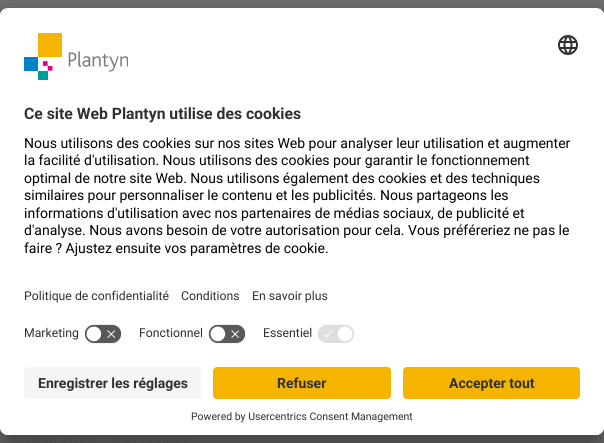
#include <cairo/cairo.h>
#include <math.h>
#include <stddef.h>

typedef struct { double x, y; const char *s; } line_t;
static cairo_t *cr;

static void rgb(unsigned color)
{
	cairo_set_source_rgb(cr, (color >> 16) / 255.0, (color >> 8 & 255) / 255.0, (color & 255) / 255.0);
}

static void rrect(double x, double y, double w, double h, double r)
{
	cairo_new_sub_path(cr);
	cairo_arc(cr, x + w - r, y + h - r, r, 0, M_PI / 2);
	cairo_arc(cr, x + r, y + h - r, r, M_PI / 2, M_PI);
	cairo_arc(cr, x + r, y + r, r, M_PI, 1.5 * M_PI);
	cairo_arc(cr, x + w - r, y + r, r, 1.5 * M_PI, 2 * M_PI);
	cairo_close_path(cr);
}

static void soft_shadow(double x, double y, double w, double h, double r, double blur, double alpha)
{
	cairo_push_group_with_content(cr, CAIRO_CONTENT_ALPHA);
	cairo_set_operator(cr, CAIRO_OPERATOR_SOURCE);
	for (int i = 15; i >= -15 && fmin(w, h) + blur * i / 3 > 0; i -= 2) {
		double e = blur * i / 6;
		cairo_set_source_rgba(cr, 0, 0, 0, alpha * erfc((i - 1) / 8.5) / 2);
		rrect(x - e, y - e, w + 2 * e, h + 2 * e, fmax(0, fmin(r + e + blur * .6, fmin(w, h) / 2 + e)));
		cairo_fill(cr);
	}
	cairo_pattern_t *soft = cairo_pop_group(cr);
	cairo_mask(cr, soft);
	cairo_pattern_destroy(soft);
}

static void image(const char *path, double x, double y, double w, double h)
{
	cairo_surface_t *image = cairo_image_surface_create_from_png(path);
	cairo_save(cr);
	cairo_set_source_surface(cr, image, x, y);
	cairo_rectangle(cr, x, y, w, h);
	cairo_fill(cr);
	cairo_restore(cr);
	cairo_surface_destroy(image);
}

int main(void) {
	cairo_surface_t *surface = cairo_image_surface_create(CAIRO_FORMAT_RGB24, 604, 443);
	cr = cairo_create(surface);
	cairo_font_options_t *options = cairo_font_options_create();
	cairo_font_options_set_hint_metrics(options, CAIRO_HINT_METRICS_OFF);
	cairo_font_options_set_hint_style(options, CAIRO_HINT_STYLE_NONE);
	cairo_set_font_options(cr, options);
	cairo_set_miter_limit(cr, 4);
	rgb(0x707070);
	cairo_paint(cr);
	rgb(0x000000);
	soft_shadow(0, 28, 604, 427, 8, 14, 0.3);
	soft_shadow(0, 13, 604, 427, 8, 13, 0.22);
	cairo_select_font_face(cr, "Inter", CAIRO_FONT_SLANT_NORMAL, CAIRO_FONT_WEIGHT_NORMAL);
	cairo_set_font_size(cr, 14);
	rgb(0x464747);
	cairo_move_to(cr, 24, 445);
	cairo_show_text(cr, "1 juin 2023");
	cairo_move_to(cr, 116, 445);
	cairo_show_text(cr, "Secondaire");
	rgb(0xffffff);
	rrect(0, 8, 604, 427, 8);
	cairo_fill(cr);
	cairo_save(cr);
	rrect(0, 8, 604, 427, 8);
	cairo_clip(cr);
	cairo_new_path(cr);
	cairo_move_to(cr, 8, 8);
	cairo_line_to(cr, 596, 8);
	cairo_curve_to(cr, 600.5, 8, 604, 11.5, 604, 16);
	cairo_line_to(cr, 604, 359);
	cairo_line_to(cr, 0, 359);
	cairo_line_to(cr, 0, 16);
	cairo_curve_to(cr, 0, 11.5, 3.5, 8, 8, 8);
	cairo_close_path(cr);
	cairo_clip(cr);
	cairo_rectangle(cr, 0, 9, 604, 350);
	cairo_fill(cr);
	cairo_rectangle(cr, 0, 9, 604, 310);
	cairo_fill(cr);
	cairo_restore(cr);
	image("img/2.png", 558, 35, 20, 20);
	cairo_select_font_face(cr, "Roboto", CAIRO_FONT_SLANT_NORMAL, CAIRO_FONT_WEIGHT_NORMAL);
	cairo_set_font_size(cr, 12.25);
	rgb(0x303030);
	cairo_move_to(cr, 181, 300);
	cairo_show_text(cr, "Conditions");
	cairo_move_to(cr, 24, 300);
	cairo_show_text(cr, "Politique de confidentialité");
	image("img/1.png", 24, 33, 104, 47);
	image("img/4.png", 317, 324, 38, 19);
	image("img/3.png", 208, 324, 38, 20);
	image("img/3.png", 84, 324, 38, 20);
	cairo_set_font_size(cr, 14);
	rgb(0x000000);
	{
		static const line_t items[] = {
			{24, 253, "faire ? Ajustez ensuite vos paramètres de cookie."},
			{24, 235, "d'analyse. Nous avons besoin de votre autorisation pour cela. Vous préféreriez ne pas le"},
			{24, 218, "informations d'utilisation avec nos partenaires de médias sociaux, de publicité et"},
			{24, 200, "similaires pour personnaliser le contenu et les publicités. Nous partageons les"},
			{24, 183, "optimal de notre site Web. Nous utilisons également des cookies et des techniques"},
			{24, 165, "la facilité d'utilisation. Nous utilisons des cookies pour garantir le fonctionnement"},
			{24, 148, "Nous utilisons des cookies sur nos sites Web pour analyser leur utilisation et augmenter"},
		};
		for (size_t i = 0; i < sizeof items / sizeof *items; i++) {
			cairo_move_to(cr, items[i].x, items[i].y);
			cairo_show_text(cr, items[i].s);
		}
	}
	cairo_set_font_size(cr, 12.25);
	rgb(0x303030);
	{
		static const line_t items[] = {
			{263, 337, "Essentiel"},
			{139, 337, "Fonctionnel"},
			{24, 337, "Marketing"},
			{252, 300, "En savoir plus"},
		};
		for (size_t i = 0; i < sizeof items / sizeof *items; i++) {
			cairo_move_to(cr, items[i].x, items[i].y);
			cairo_show_text(cr, items[i].s);
		}
	}
	cairo_select_font_face(cr, "Roboto", CAIRO_FONT_SLANT_NORMAL, CAIRO_FONT_WEIGHT_BOLD);
	cairo_set_font_size(cr, 15.75);
	cairo_move_to(cr, 24, 119);
	cairo_show_text(cr, "Ce site Web Plantyn utilise des cookies");
	rgb(0xffffff);
	cairo_new_path(cr);
	cairo_move_to(cr, 0, 359);
	cairo_line_to(cr, 604, 359);
	cairo_line_to(cr, 604, 427);
	cairo_curve_to(cr, 604, 431.5, 600.5, 435, 596, 435);
	cairo_line_to(cr, 8, 435);
	cairo_curve_to(cr, 3.5, 435, 0, 431.5, 0, 427);
	cairo_close_path(cr);
	cairo_fill(cr);
	cairo_select_font_face(cr, "Roboto", CAIRO_FONT_SLANT_NORMAL, CAIRO_FONT_WEIGHT_NORMAL);
	cairo_set_font_size(cr, 10.5);
	rgb(0x303030);
	cairo_move_to(cr, 191, 420);
	cairo_show_text(cr, "Powered by Usercentrics Consent Management");
	rgb(0xf5b400);
	rrect(403, 367, 177, 32, 4);
	cairo_fill(cr);
	cairo_select_font_face(cr, "Roboto", CAIRO_FONT_SLANT_NORMAL, CAIRO_FONT_WEIGHT_BOLD);
	cairo_set_font_size(cr, 14);
	rgb(0x303030);
	cairo_move_to(cr, 449, 388);
	cairo_show_text(cr, "Accepter tout");
	rgb(0xf5b400);
	rrect(213, 367, 178, 32, 4);
	cairo_fill(cr);
	rgb(0x303030);
	cairo_move_to(cr, 277, 388);
	cairo_show_text(cr, "Refuser");
	rgb(0xf5f5f5);
	rrect(24, 367, 177, 32, 4);
	cairo_fill(cr);
	rgb(0x303030);
	cairo_move_to(cr, 38, 388);
	cairo_show_text(cr, "Enregistrer les réglages");
	cairo_surface_write_to_png(surface, "page.png");
	cairo_font_options_destroy(options);
	cairo_destroy(cr);
	cairo_surface_destroy(surface);
	return 0;
}
